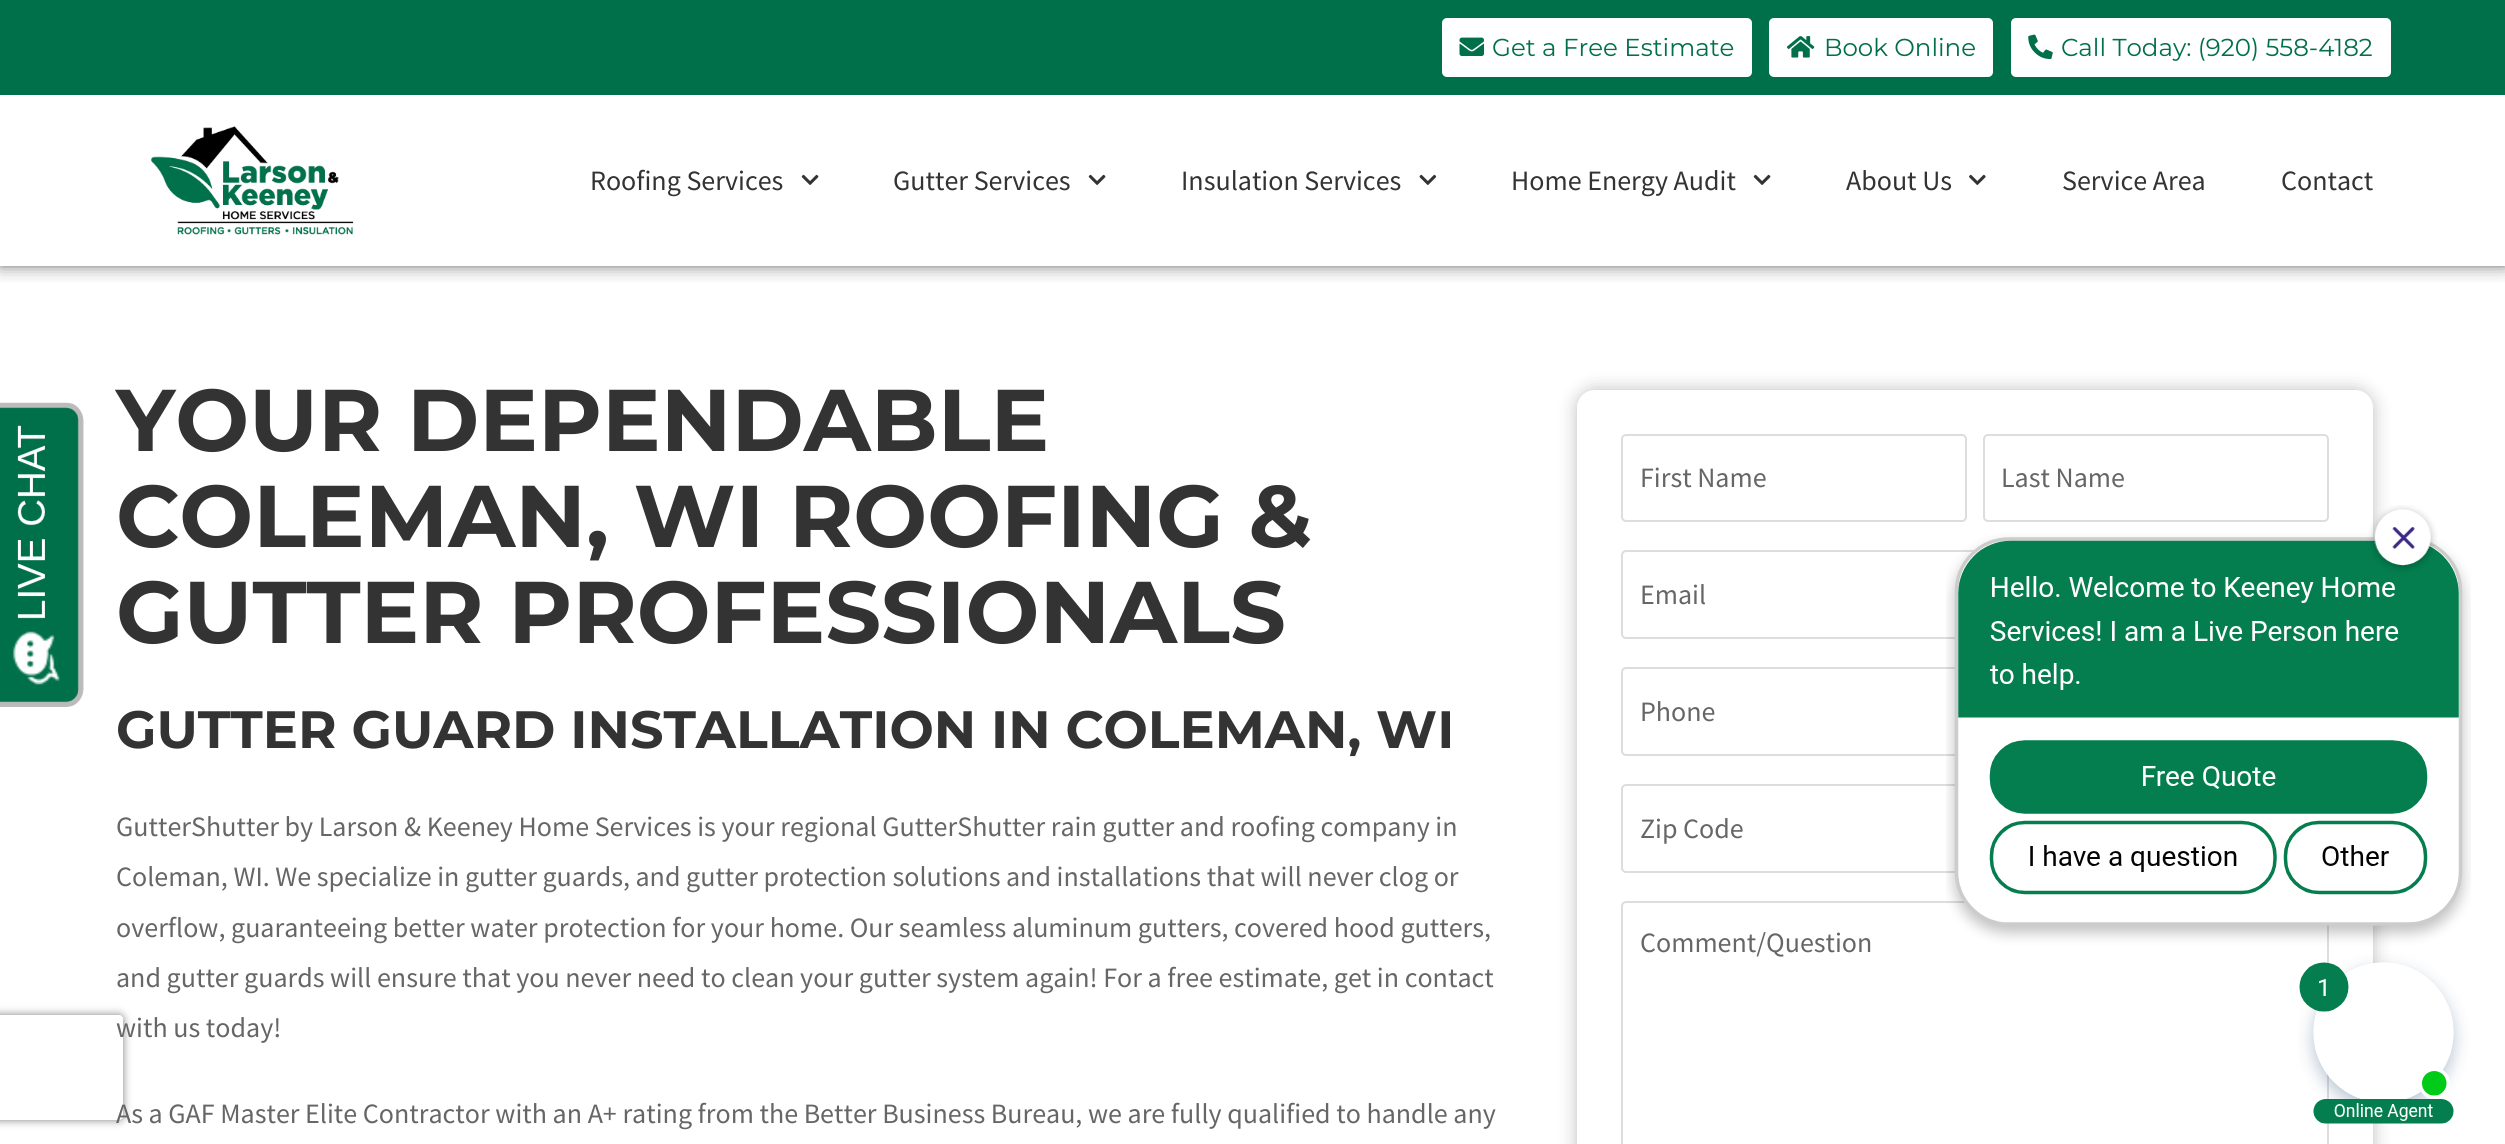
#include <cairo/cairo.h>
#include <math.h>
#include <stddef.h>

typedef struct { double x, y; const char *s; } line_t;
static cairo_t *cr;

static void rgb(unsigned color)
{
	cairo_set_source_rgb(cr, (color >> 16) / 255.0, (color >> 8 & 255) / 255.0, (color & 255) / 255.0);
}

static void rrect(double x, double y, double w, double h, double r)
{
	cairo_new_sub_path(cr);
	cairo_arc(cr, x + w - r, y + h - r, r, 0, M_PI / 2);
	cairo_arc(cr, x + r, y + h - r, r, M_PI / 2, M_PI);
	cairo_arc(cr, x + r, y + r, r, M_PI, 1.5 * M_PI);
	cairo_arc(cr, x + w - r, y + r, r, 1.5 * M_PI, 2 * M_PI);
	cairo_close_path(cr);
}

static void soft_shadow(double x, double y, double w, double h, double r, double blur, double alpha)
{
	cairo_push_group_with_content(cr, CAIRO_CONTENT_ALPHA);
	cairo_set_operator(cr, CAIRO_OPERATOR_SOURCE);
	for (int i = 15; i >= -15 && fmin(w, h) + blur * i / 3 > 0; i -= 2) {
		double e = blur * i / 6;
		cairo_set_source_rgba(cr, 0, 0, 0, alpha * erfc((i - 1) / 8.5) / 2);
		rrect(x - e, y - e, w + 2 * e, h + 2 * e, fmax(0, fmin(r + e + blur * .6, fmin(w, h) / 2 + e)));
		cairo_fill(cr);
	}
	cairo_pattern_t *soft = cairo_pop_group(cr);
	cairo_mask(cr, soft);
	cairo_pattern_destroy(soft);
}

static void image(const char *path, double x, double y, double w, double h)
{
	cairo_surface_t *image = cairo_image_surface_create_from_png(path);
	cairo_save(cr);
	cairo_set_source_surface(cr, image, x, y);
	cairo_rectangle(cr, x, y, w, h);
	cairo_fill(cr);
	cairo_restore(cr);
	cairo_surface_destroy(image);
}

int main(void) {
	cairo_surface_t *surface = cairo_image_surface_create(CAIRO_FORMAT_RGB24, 2505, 1144);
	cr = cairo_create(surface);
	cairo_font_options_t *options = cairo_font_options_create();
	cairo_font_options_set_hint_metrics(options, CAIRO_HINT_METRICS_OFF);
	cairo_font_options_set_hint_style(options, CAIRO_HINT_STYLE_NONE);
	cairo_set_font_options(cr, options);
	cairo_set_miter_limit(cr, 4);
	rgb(0xffffff);
	cairo_paint(cr);
	image("img/1.png", 0, 402, 84, 305);
	rgb(0xf1f1f1);
	cairo_rectangle(cr, 0, 266, 2505, 2);
	cairo_fill(cr);
	cairo_save(cr);
	cairo_rectangle(cr, 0, 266, 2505, 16);
	cairo_clip(cr);
	rgb(0x000000);
	soft_shadow(0, 0, 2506, 266, 0, 9, 0.5);
	cairo_restore(cr);
	rgb(0x00704a);
	cairo_rectangle(cr, 0, 0, 2505, 95);
	cairo_fill(cr);
	rgb(0xffffff);
	rrect(1442, 18, 310, 59, 5);
	cairo_fill(cr);
	image("img/2.png", 1459, 37, 25, 19);
	rrect(1769, 18, 224, 59, 5);
	cairo_fill(cr);
	image("img/3.png", 1786, 36, 29, 22);
	rrect(2011, 18, 380, 59, 5);
	cairo_fill(cr);
	image("img/4.png", 2028, 34, 25, 26);
	image("img/5.png", 151, 126, 203, 109);
	image("img/6.png", 801, 174, 18, 11);
	image("img/6.png", 1088, 174, 18, 11);
	image("img/7.png", 1419, 174, 18, 11);
	image("img/6.png", 1753, 174, 18, 11);
	image("img/8.png", 1969, 174, 17, 11);
	rgb(0x000000);
	soft_shadow(1577, 390, 796, 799, 18, 9, 0.26);
	rgb(0xffffff);
	rrect(1577, 390, 796, 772, 18);
	cairo_fill(cr);
	rrect(1622, 435, 344, 86, 4);
	rgb(0xdddddd);
	cairo_stroke(cr);
	rrect(1984, 435, 344, 86, 4);
	cairo_stroke(cr);
	rrect(1622, 551, 706, 87, 4);
	cairo_stroke(cr);
	rrect(1622, 668, 706, 87, 4);
	cairo_stroke(cr);
	rrect(1622, 785, 706, 87, 4);
	cairo_stroke(cr);
	rrect(1622, 902, 706, 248, 4);
	cairo_stroke(cr);
	cairo_save(cr);
	cairo_set_fill_rule(cr, CAIRO_FILL_RULE_EVEN_ODD);
	cairo_new_path(cr);
	cairo_move_to(cr, 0, 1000);
	cairo_line_to(cr, 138, 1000);
	cairo_line_to(cr, 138, 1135);
	cairo_line_to(cr, 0, 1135);
	cairo_close_path(cr);
	cairo_move_to(cr, -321, 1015);
	cairo_line_to(cr, 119, 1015);
	cairo_curve_to(cr, 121, 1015, 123, 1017, 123, 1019);
	cairo_line_to(cr, 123, 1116);
	cairo_curve_to(cr, 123, 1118, 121, 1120, 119, 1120);
	cairo_line_to(cr, -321, 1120);
	cairo_curve_to(cr, -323, 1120, -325, 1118, -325, 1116);
	cairo_line_to(cr, -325, 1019);
	cairo_curve_to(cr, -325, 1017, -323, 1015, -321, 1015);
	cairo_close_path(cr);
	cairo_clip(cr);
	rgb(0x808080);
	soft_shadow(-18, 1015, 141, 105, 4, 4.5, 1);
	cairo_restore(cr);
	image("img/9.png", 1946, 505, 525, 619);
	cairo_select_font_face(cr, "Montserrat", CAIRO_FONT_SLANT_NORMAL, CAIRO_FONT_WEIGHT_NORMAL);
	cairo_set_font_size(cr, 24.5);
	rgb(0x00704a);
	{
		static const line_t items[] = {
			{1492, 56, "Get a Free Estimate"},
			{1824, 56, "Book Online"},
			{2061, 56, "Call Today: (920) 558-4182"},
		};
		for (size_t i = 0; i < sizeof items / sizeof *items; i++) {
			cairo_move_to(cr, items[i].x, items[i].y);
			cairo_show_text(cr, items[i].s);
		}
	}
	cairo_select_font_face(cr, "Source Sans Pro", CAIRO_FONT_SLANT_NORMAL, CAIRO_FONT_WEIGHT_NORMAL);
	cairo_set_font_size(cr, 28);
	rgb(0x333333);
	{
		static const line_t items[] = {
			{590, 190, "Roofing Services"},
			{893, 190, "Gutter Services"},
			{1181, 190, "Insulation Services"},
			{1511, 190, "Home Energy Audit"},
			{1846, 190, "About Us"},
			{2062, 190, "Service Area"},
			{2281, 190, "Contact"},
		};
		for (size_t i = 0; i < sizeof items / sizeof *items; i++) {
			cairo_move_to(cr, items[i].x, items[i].y);
			cairo_show_text(cr, items[i].s);
		}
	}
	cairo_select_font_face(cr, "Montserrat", CAIRO_FONT_SLANT_NORMAL, CAIRO_FONT_WEIGHT_BOLD);
	cairo_set_font_size(cr, 87.5);
	{
		static const line_t items[] = {
			{116, 451, "YOUR DEPENDABLE"},
			{116, 547, "COLEMAN, WI ROOFING &"},
			{116, 643, "GUTTER PROFESSIONALS"},
		};
		for (size_t i = 0; i < sizeof items / sizeof *items; i++) {
			cairo_move_to(cr, items[i].x, items[i].y);
			cairo_show_text(cr, items[i].s);
		}
	}
	cairo_set_font_size(cr, 52.5);
	cairo_move_to(cr, 116, 748);
	cairo_show_text(cr, "GUTTER GUARD INSTALLATION IN COLEMAN, WI");
	cairo_select_font_face(cr, "Source Sans Pro", CAIRO_FONT_SLANT_NORMAL, CAIRO_FONT_WEIGHT_NORMAL);
	cairo_set_font_size(cr, 28);
	rgb(0x666666);
	{
		static const line_t items[] = {
			{116, 836, "GutterShutter by Larson & Keeney Home Services is your regional GutterShutter rain gutter and roofing company in"},
			{116, 886, "Coleman, WI. We specialize in gutter guards, and gutter protection solutions and installations that will never clog or"},
			{116, 937, "overflow, guaranteeing better water protection for your home. Our seamless aluminum gutters, covered hood gutters,"},
			{116, 987, "and gutter guards will ensure that you never need to clean your gutter system again! For a free estimate, get in contact"},
			{116, 1037, "with us today!"},
			{116, 1123, "As a GAF Master Elite Contractor with an A+ rating from the Better Business Bureau, we are fully qualified to handle any"},
			{1640, 487, "First Name"},
			{2001, 487, "Last Name"},
			{1640, 604, "Email"},
			{1640, 721, "Phone"},
			{1640, 838, "Zip Code"},
			{1640, 952, "Comment/Question"},
		};
		for (size_t i = 0; i < sizeof items / sizeof *items; i++) {
			cairo_move_to(cr, items[i].x, items[i].y);
			cairo_show_text(cr, items[i].s);
		}
	}
	cairo_surface_write_to_png(surface, "page.png");
	cairo_font_options_destroy(options);
	cairo_destroy(cr);
	cairo_surface_destroy(surface);
	return 0;
}
